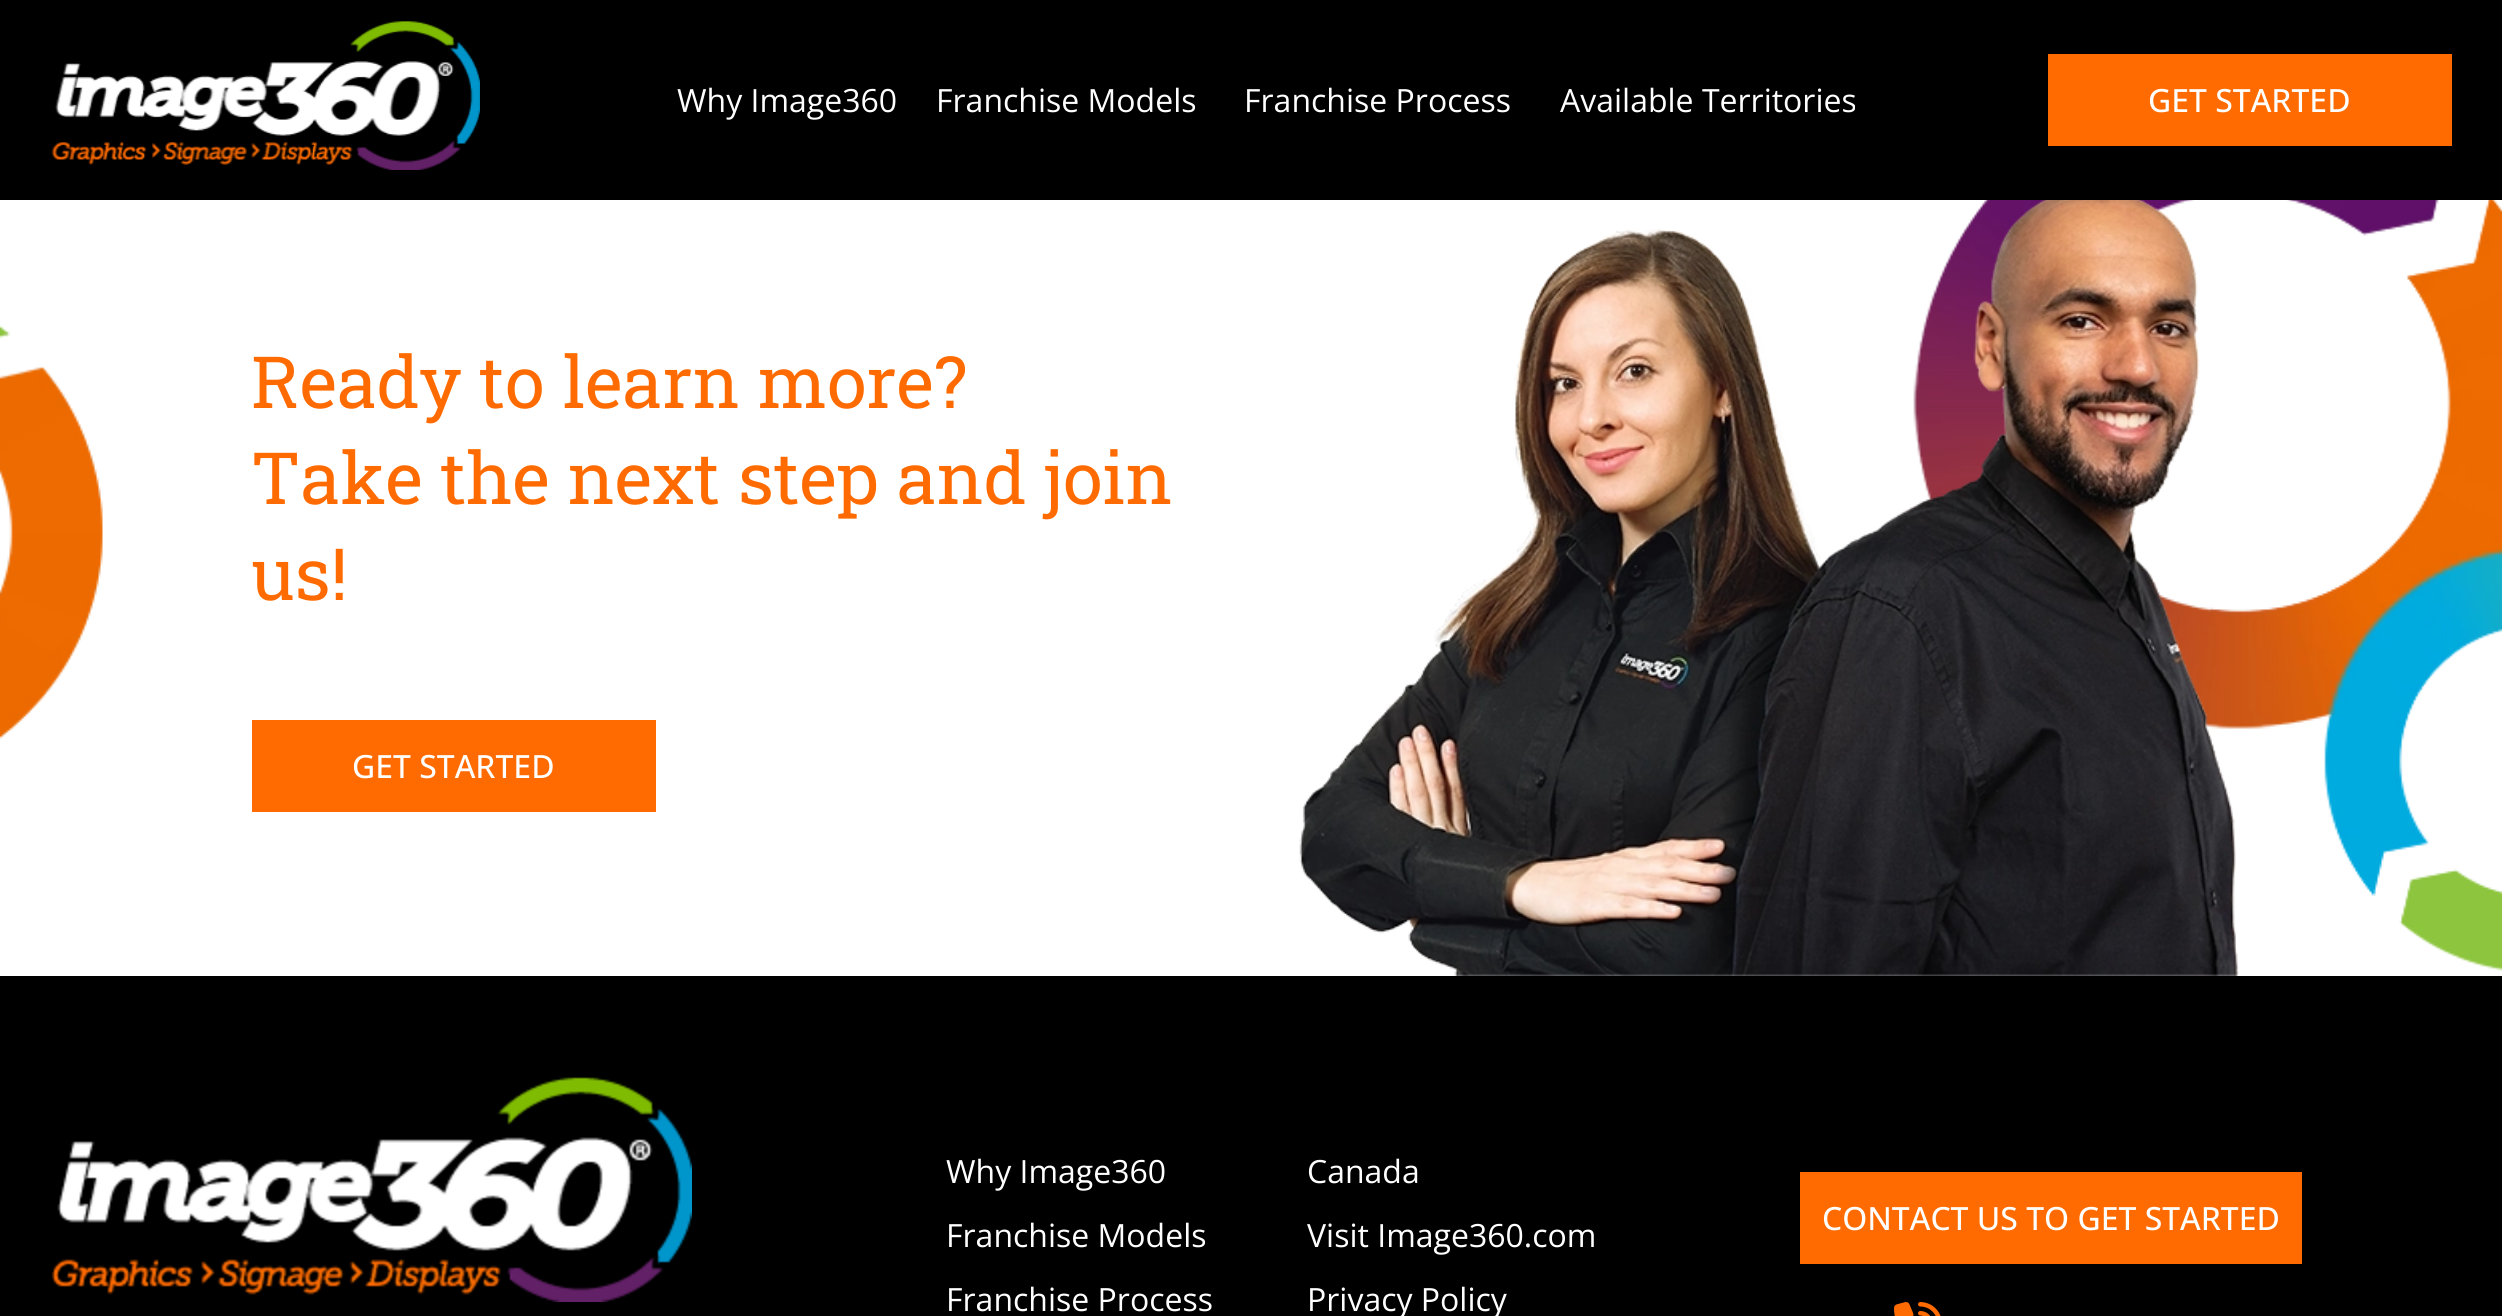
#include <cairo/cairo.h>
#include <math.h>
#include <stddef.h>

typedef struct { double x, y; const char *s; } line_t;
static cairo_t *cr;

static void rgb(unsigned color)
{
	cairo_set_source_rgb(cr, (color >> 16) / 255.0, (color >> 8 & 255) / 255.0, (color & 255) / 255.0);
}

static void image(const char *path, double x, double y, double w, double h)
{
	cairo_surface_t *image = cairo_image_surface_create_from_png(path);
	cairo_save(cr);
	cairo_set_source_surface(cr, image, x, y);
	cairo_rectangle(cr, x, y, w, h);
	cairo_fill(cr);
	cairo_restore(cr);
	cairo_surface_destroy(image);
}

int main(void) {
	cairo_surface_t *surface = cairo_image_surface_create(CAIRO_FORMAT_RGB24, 2502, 1316);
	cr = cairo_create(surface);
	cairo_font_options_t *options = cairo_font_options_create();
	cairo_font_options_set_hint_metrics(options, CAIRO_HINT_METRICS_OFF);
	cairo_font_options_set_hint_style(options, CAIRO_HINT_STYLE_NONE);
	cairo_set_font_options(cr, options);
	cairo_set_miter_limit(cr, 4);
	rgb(0xffffff);
	cairo_paint(cr);
	rgb(0x000000);
	cairo_rectangle(cr, 0, 0, 2502, 200);
	cairo_fill(cr);
	image("img/1.png", 51, 21, 429, 149);
	rgb(0xff6b00);
	cairo_rectangle(cr, 2048, 54, 404, 92);
	cairo_fill(cr);
	image("img/2.png", 0, 200, 2502, 771);
	cairo_rectangle(cr, 252, 720, 404, 92);
	cairo_fill(cr);
	image("img/3.png", 1299, 200, 940, 776);
	rgb(0x000000);
	cairo_rectangle(cr, 0, 976, 2502, 340);
	cairo_fill(cr);
	image("img/4.png", 52, 1077, 640, 225);
	rgb(0xff6b00);
	cairo_rectangle(cr, 1800, 1172, 502, 92);
	cairo_fill(cr);
	image("img/5.png", 1894, 1302, 47, 14);
	cairo_select_font_face(cr, "Open Sans", CAIRO_FONT_SLANT_NORMAL, CAIRO_FONT_WEIGHT_NORMAL);
	cairo_set_font_size(cr, 32);
	rgb(0xffffff);
	{
		static const line_t items[] = {
			{677, 112, "Why Image360"},
			{936, 112, "Franchise Models"},
			{1244, 112, "Franchise Process"},
			{1560, 112, "Available Territories"},
		};
		for (size_t i = 0; i < sizeof items / sizeof *items; i++) {
			cairo_move_to(cr, items[i].x, items[i].y);
			cairo_show_text(cr, items[i].s);
		}
	}
	cairo_select_font_face(cr, "Open Sans Medium", CAIRO_FONT_SLANT_NORMAL, CAIRO_FONT_WEIGHT_NORMAL);
	cairo_move_to(cr, 2148, 112);
	cairo_show_text(cr, "GET STARTED");
	cairo_select_font_face(cr, "Roboto Slab", CAIRO_FONT_SLANT_NORMAL, CAIRO_FONT_WEIGHT_NORMAL);
	cairo_set_font_size(cr, 72);
	rgb(0xff6b00);
	{
		static const line_t items[] = {
			{251, 408, "Ready to learn more?"},
			{251, 504, "Take the next step and join"},
			{251, 600, "us!"},
		};
		for (size_t i = 0; i < sizeof items / sizeof *items; i++) {
			cairo_move_to(cr, items[i].x, items[i].y);
			cairo_show_text(cr, items[i].s);
		}
	}
	cairo_select_font_face(cr, "Open Sans Medium", CAIRO_FONT_SLANT_NORMAL, CAIRO_FONT_WEIGHT_NORMAL);
	cairo_set_font_size(cr, 32);
	rgb(0xffffff);
	cairo_move_to(cr, 352, 778);
	cairo_show_text(cr, "GET STARTED");
	cairo_select_font_face(cr, "Open Sans", CAIRO_FONT_SLANT_NORMAL, CAIRO_FONT_WEIGHT_NORMAL);
	{
		static const line_t items[] = {
			{946, 1183, "Why Image360"},
			{1307, 1183, "Canada"},
			{946, 1247, "Franchise Models"},
			{1307, 1247, "Visit Image360.com"},
			{946, 1311, "Franchise Process"},
			{1307, 1311, "Privacy Policy"},
		};
		for (size_t i = 0; i < sizeof items / sizeof *items; i++) {
			cairo_move_to(cr, items[i].x, items[i].y);
			cairo_show_text(cr, items[i].s);
		}
	}
	cairo_select_font_face(cr, "Open Sans Medium", CAIRO_FONT_SLANT_NORMAL, CAIRO_FONT_WEIGHT_NORMAL);
	cairo_move_to(cr, 1822, 1230);
	cairo_show_text(cr, "CONTACT US TO GET STARTED");
	cairo_surface_write_to_png(surface, "page.png");
	cairo_font_options_destroy(options);
	cairo_destroy(cr);
	cairo_surface_destroy(surface);
	return 0;
}
